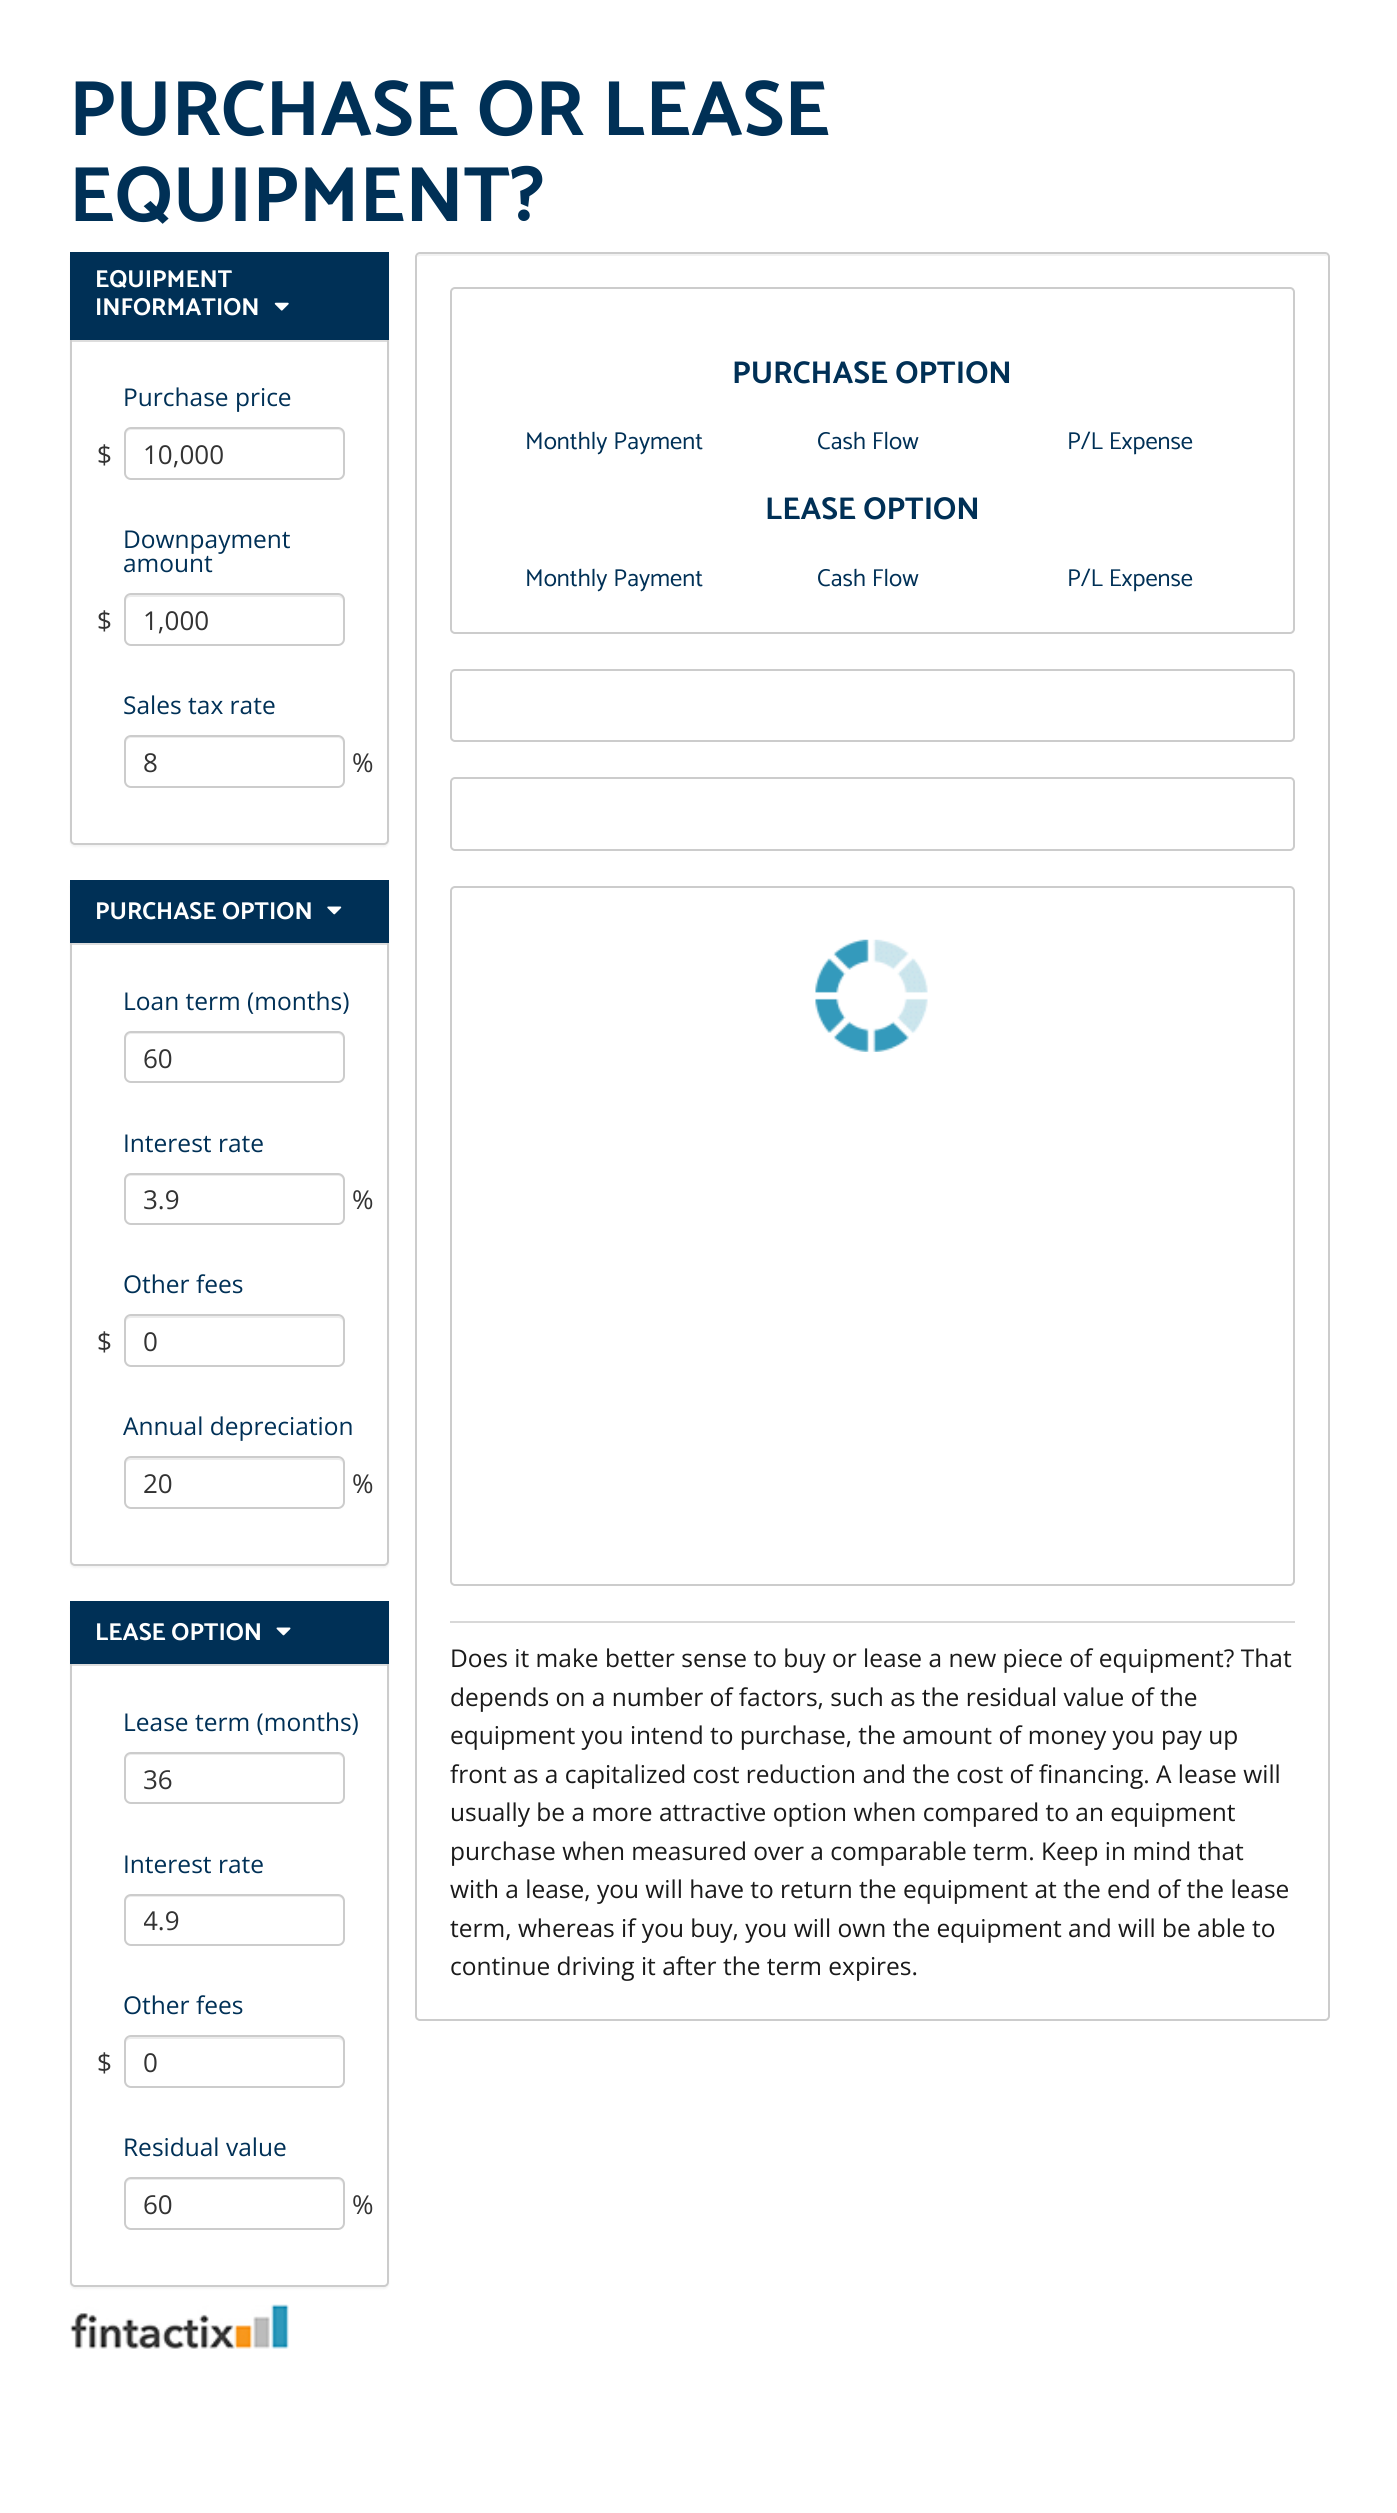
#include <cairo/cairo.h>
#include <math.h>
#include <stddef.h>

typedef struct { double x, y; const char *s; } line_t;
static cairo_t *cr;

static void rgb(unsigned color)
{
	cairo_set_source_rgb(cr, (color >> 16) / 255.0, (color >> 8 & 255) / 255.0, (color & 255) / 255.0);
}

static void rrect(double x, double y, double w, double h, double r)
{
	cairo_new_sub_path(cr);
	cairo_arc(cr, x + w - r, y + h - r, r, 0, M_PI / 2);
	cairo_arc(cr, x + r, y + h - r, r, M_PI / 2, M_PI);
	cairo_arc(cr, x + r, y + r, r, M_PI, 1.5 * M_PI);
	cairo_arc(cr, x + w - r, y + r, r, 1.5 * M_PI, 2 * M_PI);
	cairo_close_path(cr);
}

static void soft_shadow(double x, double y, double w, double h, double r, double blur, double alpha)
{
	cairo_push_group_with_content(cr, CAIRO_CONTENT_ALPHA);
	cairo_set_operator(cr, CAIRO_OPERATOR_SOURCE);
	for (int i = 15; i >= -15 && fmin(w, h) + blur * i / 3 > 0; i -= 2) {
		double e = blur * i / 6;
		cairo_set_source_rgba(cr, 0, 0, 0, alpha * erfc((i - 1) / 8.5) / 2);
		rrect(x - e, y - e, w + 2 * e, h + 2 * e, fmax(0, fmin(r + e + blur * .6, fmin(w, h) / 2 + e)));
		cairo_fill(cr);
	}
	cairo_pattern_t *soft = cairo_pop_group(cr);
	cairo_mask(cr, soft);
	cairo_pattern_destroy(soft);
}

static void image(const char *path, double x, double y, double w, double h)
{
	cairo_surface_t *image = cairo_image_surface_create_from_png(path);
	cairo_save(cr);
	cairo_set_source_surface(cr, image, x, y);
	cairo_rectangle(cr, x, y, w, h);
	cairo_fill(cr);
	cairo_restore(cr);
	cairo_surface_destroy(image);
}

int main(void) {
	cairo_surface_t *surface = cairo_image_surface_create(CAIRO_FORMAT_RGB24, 1397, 2513);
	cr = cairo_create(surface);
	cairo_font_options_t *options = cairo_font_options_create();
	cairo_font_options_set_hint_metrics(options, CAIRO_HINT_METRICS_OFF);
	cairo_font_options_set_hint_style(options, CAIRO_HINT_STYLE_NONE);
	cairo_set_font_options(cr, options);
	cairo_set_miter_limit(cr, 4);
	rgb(0xffffff);
	cairo_paint(cr);
	rgb(0x000000);
	soft_shadow(70, 254, 319, 593, 5, 1, 0.05);
	rgb(0xffffff);
	rrect(71, 253, 317, 591, 4);
	cairo_fill_preserve(cr);
	rgb(0xcccccc);
	cairo_stroke(cr);
	rgb(0xdddddd);
	cairo_rectangle(cr, 72, 340, 315, 2);
	cairo_fill(cr);
	rgb(0x003056);
	cairo_rectangle(cr, 70, 252, 319, 88);
	cairo_fill(cr);
	image("img/1.png", 274, 302, 15, 9);
	rgb(0xececec);
	cairo_new_path(cr);
	cairo_move_to(cr, 131, 430);
	cairo_line_to(cr, 338, 430);
	cairo_curve_to(cr, 341, 430, 343, 433, 343, 436);
	cairo_line_to(cr, 343, 434);
	cairo_curve_to(cr, 343, 431, 341, 429, 338, 429);
	cairo_line_to(cr, 131, 429);
	cairo_curve_to(cr, 128, 429, 126, 431, 126, 434);
	cairo_line_to(cr, 126, 436);
	cairo_curve_to(cr, 126, 433, 128, 430, 131, 430);
	cairo_close_path(cr);
	cairo_fill(cr);
	rrect(125, 428, 219, 51, 6);
	rgb(0xcccccc);
	cairo_stroke(cr);
	rgb(0xececec);
	cairo_new_path(cr);
	cairo_move_to(cr, 131, 597);
	cairo_line_to(cr, 338, 597);
	cairo_curve_to(cr, 341, 597, 343, 599, 343, 602);
	cairo_line_to(cr, 343, 600);
	cairo_curve_to(cr, 343, 597, 341, 595, 338, 595);
	cairo_line_to(cr, 131, 595);
	cairo_curve_to(cr, 128, 595, 126, 597, 126, 600);
	cairo_line_to(cr, 126, 602);
	cairo_curve_to(cr, 126, 599, 128, 597, 131, 597);
	cairo_close_path(cr);
	cairo_fill(cr);
	rrect(125, 594, 219, 51, 6);
	rgb(0xcccccc);
	cairo_stroke(cr);
	rgb(0xececec);
	cairo_new_path(cr);
	cairo_move_to(cr, 131, 738);
	cairo_line_to(cr, 338, 738);
	cairo_curve_to(cr, 341, 738, 343, 741, 343, 744);
	cairo_line_to(cr, 343, 742);
	cairo_curve_to(cr, 343, 739, 341, 737, 338, 737);
	cairo_line_to(cr, 131, 737);
	cairo_curve_to(cr, 128, 737, 126, 739, 126, 742);
	cairo_line_to(cr, 126, 744);
	cairo_curve_to(cr, 126, 741, 128, 738, 131, 738);
	cairo_close_path(cr);
	cairo_fill(cr);
	rrect(125, 736, 219, 51, 6);
	rgb(0xcccccc);
	cairo_stroke(cr);
	rgb(0x000000);
	soft_shadow(70, 882, 319, 686, 5, 1, 0.05);
	rgb(0xffffff);
	rrect(71, 881, 317, 684, 4);
	cairo_fill_preserve(cr);
	rgb(0xcccccc);
	cairo_stroke(cr);
	rgb(0xdddddd);
	cairo_rectangle(cr, 72, 943, 315, 2);
	cairo_fill(cr);
	rgb(0x003056);
	cairo_rectangle(cr, 70, 880, 319, 63);
	cairo_fill(cr);
	image("img/2.png", 327, 906, 15, 9);
	rgb(0xececec);
	cairo_new_path(cr);
	cairo_move_to(cr, 131, 1034);
	cairo_line_to(cr, 338, 1034);
	cairo_curve_to(cr, 341, 1034, 343, 1037, 343, 1040);
	cairo_line_to(cr, 343, 1038);
	cairo_curve_to(cr, 343, 1035, 341, 1033, 338, 1033);
	cairo_line_to(cr, 131, 1033);
	cairo_curve_to(cr, 128, 1033, 126, 1035, 126, 1038);
	cairo_line_to(cr, 126, 1040);
	cairo_curve_to(cr, 126, 1037, 128, 1034, 131, 1034);
	cairo_close_path(cr);
	cairo_fill(cr);
	rrect(125, 1032, 219, 50, 6);
	rgb(0xcccccc);
	cairo_stroke(cr);
	rgb(0xececec);
	cairo_new_path(cr);
	cairo_move_to(cr, 131, 1176);
	cairo_line_to(cr, 338, 1176);
	cairo_curve_to(cr, 341, 1176, 343, 1178, 343, 1181);
	cairo_line_to(cr, 343, 1179);
	cairo_curve_to(cr, 343, 1176, 341, 1174, 338, 1174);
	cairo_line_to(cr, 131, 1174);
	cairo_curve_to(cr, 128, 1174, 126, 1176, 126, 1179);
	cairo_line_to(cr, 126, 1181);
	cairo_curve_to(cr, 126, 1178, 128, 1176, 131, 1176);
	cairo_close_path(cr);
	cairo_fill(cr);
	rrect(125, 1174, 219, 50, 6);
	rgb(0xcccccc);
	cairo_stroke(cr);
	rgb(0xececec);
	cairo_new_path(cr);
	cairo_move_to(cr, 131, 1318);
	cairo_line_to(cr, 338, 1318);
	cairo_curve_to(cr, 341, 1318, 343, 1320, 343, 1323);
	cairo_line_to(cr, 343, 1321);
	cairo_curve_to(cr, 343, 1318, 341, 1316, 338, 1316);
	cairo_line_to(cr, 131, 1316);
	cairo_curve_to(cr, 128, 1316, 126, 1318, 126, 1321);
	cairo_line_to(cr, 126, 1323);
	cairo_curve_to(cr, 126, 1320, 128, 1318, 131, 1318);
	cairo_close_path(cr);
	cairo_fill(cr);
	rrect(125, 1315, 219, 51, 6);
	rgb(0xcccccc);
	cairo_stroke(cr);
	rgb(0xececec);
	cairo_new_path(cr);
	cairo_move_to(cr, 131, 1460);
	cairo_line_to(cr, 338, 1460);
	cairo_curve_to(cr, 341, 1460, 343, 1462, 343, 1465);
	cairo_line_to(cr, 343, 1463);
	cairo_curve_to(cr, 343, 1460, 341, 1458, 338, 1458);
	cairo_line_to(cr, 131, 1458);
	cairo_curve_to(cr, 128, 1458, 126, 1460, 126, 1463);
	cairo_line_to(cr, 126, 1465);
	cairo_curve_to(cr, 126, 1462, 128, 1460, 131, 1460);
	cairo_close_path(cr);
	cairo_fill(cr);
	rrect(125, 1457, 219, 51, 6);
	rgb(0xcccccc);
	cairo_stroke(cr);
	rgb(0x000000);
	soft_shadow(70, 1603, 319, 686, 5, 1, 0.05);
	rgb(0xffffff);
	rrect(71, 1602, 317, 684, 4);
	cairo_fill_preserve(cr);
	rgb(0xcccccc);
	cairo_stroke(cr);
	rgb(0xdddddd);
	cairo_rectangle(cr, 72, 1664, 315, 2);
	cairo_fill(cr);
	rgb(0x003056);
	cairo_rectangle(cr, 70, 1601, 319, 63);
	cairo_fill(cr);
	image("img/3.png", 276, 1627, 15, 9);
	rgb(0xececec);
	cairo_new_path(cr);
	cairo_move_to(cr, 131, 1755);
	cairo_line_to(cr, 338, 1755);
	cairo_curve_to(cr, 341, 1755, 343, 1758, 343, 1760);
	cairo_curve_to(cr, 343, 1757, 341, 1754, 338, 1754);
	cairo_line_to(cr, 130, 1754);
	cairo_curve_to(cr, 127, 1755, 126, 1757, 126, 1760);
	cairo_curve_to(cr, 126, 1758, 128, 1755, 131, 1755);
	cairo_close_path(cr);
	cairo_fill(cr);
	rrect(125, 1753, 219, 50, 6);
	rgb(0xcccccc);
	cairo_stroke(cr);
	rgb(0xececec);
	cairo_new_path(cr);
	cairo_move_to(cr, 131, 1897);
	cairo_line_to(cr, 338, 1897);
	cairo_curve_to(cr, 341, 1897, 343, 1899, 343, 1902);
	cairo_line_to(cr, 343, 1900);
	cairo_curve_to(cr, 343, 1897, 341, 1895, 338, 1895);
	cairo_line_to(cr, 131, 1895);
	cairo_curve_to(cr, 128, 1895, 126, 1897, 126, 1900);
	cairo_line_to(cr, 126, 1902);
	cairo_curve_to(cr, 126, 1899, 128, 1897, 131, 1897);
	cairo_close_path(cr);
	cairo_fill(cr);
	rrect(125, 1895, 219, 50, 6);
	rgb(0xcccccc);
	cairo_stroke(cr);
	rgb(0xececec);
	cairo_new_path(cr);
	cairo_move_to(cr, 131, 2039);
	cairo_line_to(cr, 338, 2039);
	cairo_curve_to(cr, 341, 2039, 343, 2041, 343, 2044);
	cairo_line_to(cr, 343, 2042);
	cairo_curve_to(cr, 343, 2039, 341, 2037, 338, 2037);
	cairo_line_to(cr, 131, 2037);
	cairo_curve_to(cr, 128, 2037, 126, 2039, 126, 2042);
	cairo_line_to(cr, 126, 2044);
	cairo_curve_to(cr, 126, 2041, 128, 2039, 131, 2039);
	cairo_close_path(cr);
	cairo_fill(cr);
	rrect(125, 2036, 219, 51, 6);
	rgb(0xcccccc);
	cairo_stroke(cr);
	rgb(0xececec);
	cairo_new_path(cr);
	cairo_move_to(cr, 131, 2180);
	cairo_line_to(cr, 338, 2180);
	cairo_curve_to(cr, 341, 2180, 343, 2183, 343, 2186);
	cairo_line_to(cr, 343, 2184);
	cairo_curve_to(cr, 343, 2181, 341, 2179, 338, 2179);
	cairo_line_to(cr, 131, 2179);
	cairo_curve_to(cr, 128, 2179, 126, 2181, 126, 2184);
	cairo_line_to(cr, 126, 2186);
	cairo_curve_to(cr, 126, 2183, 128, 2180, 131, 2180);
	cairo_close_path(cr);
	cairo_fill(cr);
	rrect(125, 2178, 219, 51, 6);
	rgb(0xcccccc);
	cairo_stroke(cr);
	rgb(0xf2f2f2);
	cairo_new_path(cr);
	cairo_move_to(cr, 420, 256);
	cairo_line_to(cr, 1325, 256);
	cairo_curve_to(cr, 1327, 256, 1328, 257, 1328, 259);
	cairo_line_to(cr, 1327, 256);
	cairo_line_to(cr, 1326, 254);
	cairo_line_to(cr, 421, 254);
	cairo_curve_to(cr, 419, 254, 418, 255, 417, 257);
	cairo_close_path(cr);
	cairo_fill(cr);
	rrect(416, 253, 913, 1767, 4);
	rgb(0xcccccc);
	cairo_stroke(cr);
	rrect(451, 288, 843, 345, 4);
	cairo_stroke(cr);
	rrect(451, 670, 843, 71, 4);
	cairo_stroke(cr);
	rrect(451, 778, 843, 72, 4);
	cairo_stroke(cr);
	rrect(451, 887, 843, 698, 4);
	cairo_stroke(cr);
	image("img/4.png", 815, 939, 113, 113);
	rgb(0xd8d8d8);
	cairo_rectangle(cr, 450, 1621, 845, 2);
	cairo_fill(cr);
	image("img/5.png", 70, 2304, 219, 45);
	cairo_select_font_face(cr, "Catamaran", CAIRO_FONT_SLANT_NORMAL, CAIRO_FONT_WEIGHT_BOLD);
	cairo_set_font_size(cr, 78.75);
	rgb(0x003056);
	cairo_move_to(cr, 69, 135);
	cairo_show_text(cr, "PURCHASE OR LEASE");
	cairo_move_to(cr, 69, 221);
	cairo_show_text(cr, "EQUIPMENT?");
	cairo_set_font_size(cr, 24.5);
	rgb(0xffffff);
	cairo_move_to(cr, 95, 287);
	cairo_show_text(cr, "EQUIPMENT");
	cairo_move_to(cr, 95, 315);
	cairo_show_text(cr, "INFORMATION");
	cairo_select_font_face(cr, "Open Sans", CAIRO_FONT_SLANT_NORMAL, CAIRO_FONT_WEIGHT_NORMAL);
	rgb(0x003056);
	cairo_move_to(cr, 123, 406);
	cairo_show_text(cr, "Purchase price");
	cairo_set_font_size(cr, 26);
	rgb(0x333333);
	cairo_move_to(cr, 97, 464);
	cairo_show_text(cr, "$");
	cairo_move_to(cr, 143, 464);
	cairo_show_text(cr, "10,000");
	cairo_set_font_size(cr, 24.5);
	rgb(0x003056);
	cairo_move_to(cr, 123, 548);
	cairo_show_text(cr, "Downpayment");
	cairo_move_to(cr, 123, 572);
	cairo_show_text(cr, "amount");
	cairo_set_font_size(cr, 26);
	rgb(0x333333);
	cairo_move_to(cr, 97, 630);
	cairo_show_text(cr, "$");
	cairo_move_to(cr, 143, 630);
	cairo_show_text(cr, "1,000");
	cairo_set_font_size(cr, 24.5);
	rgb(0x003056);
	cairo_move_to(cr, 123, 714);
	cairo_show_text(cr, "Sales tax rate");
	cairo_set_font_size(cr, 26);
	rgb(0x333333);
	cairo_move_to(cr, 143, 772);
	cairo_show_text(cr, "8");
	cairo_move_to(cr, 352, 772);
	cairo_show_text(cr, "%");
	cairo_select_font_face(cr, "Catamaran", CAIRO_FONT_SLANT_NORMAL, CAIRO_FONT_WEIGHT_BOLD);
	cairo_set_font_size(cr, 24.5);
	rgb(0xffffff);
	cairo_move_to(cr, 95, 919);
	cairo_show_text(cr, "PURCHASE OPTION");
	cairo_select_font_face(cr, "Open Sans", CAIRO_FONT_SLANT_NORMAL, CAIRO_FONT_WEIGHT_NORMAL);
	rgb(0x003056);
	cairo_move_to(cr, 123, 1010);
	cairo_show_text(cr, "Loan term (months)");
	cairo_set_font_size(cr, 26);
	rgb(0x333333);
	cairo_move_to(cr, 143, 1068);
	cairo_show_text(cr, "60");
	cairo_set_font_size(cr, 24.5);
	rgb(0x003056);
	cairo_move_to(cr, 123, 1152);
	cairo_show_text(cr, "Interest rate");
	cairo_set_font_size(cr, 26);
	rgb(0x333333);
	cairo_move_to(cr, 143, 1209);
	cairo_show_text(cr, "3.9");
	cairo_move_to(cr, 352, 1209);
	cairo_show_text(cr, "%");
	cairo_set_font_size(cr, 24.5);
	rgb(0x003056);
	cairo_move_to(cr, 123, 1293);
	cairo_show_text(cr, "Other fees");
	cairo_set_font_size(cr, 26);
	rgb(0x333333);
	cairo_move_to(cr, 97, 1351);
	cairo_show_text(cr, "$");
	cairo_move_to(cr, 143, 1351);
	cairo_show_text(cr, "0");
	cairo_set_font_size(cr, 24.5);
	rgb(0x003056);
	cairo_move_to(cr, 123, 1435);
	cairo_show_text(cr, "Annual depreciation");
	cairo_set_font_size(cr, 26);
	rgb(0x333333);
	cairo_move_to(cr, 143, 1493);
	cairo_show_text(cr, "20");
	cairo_move_to(cr, 352, 1493);
	cairo_show_text(cr, "%");
	cairo_select_font_face(cr, "Catamaran", CAIRO_FONT_SLANT_NORMAL, CAIRO_FONT_WEIGHT_BOLD);
	cairo_set_font_size(cr, 24.5);
	rgb(0xffffff);
	cairo_move_to(cr, 95, 1640);
	cairo_show_text(cr, "LEASE OPTION");
	cairo_select_font_face(cr, "Open Sans", CAIRO_FONT_SLANT_NORMAL, CAIRO_FONT_WEIGHT_NORMAL);
	rgb(0x003056);
	cairo_move_to(cr, 123, 1731);
	cairo_show_text(cr, "Lease term (months)");
	cairo_set_font_size(cr, 26);
	rgb(0x333333);
	cairo_move_to(cr, 143, 1789);
	cairo_show_text(cr, "36");
	cairo_set_font_size(cr, 24.5);
	rgb(0x003056);
	cairo_move_to(cr, 123, 1873);
	cairo_show_text(cr, "Interest rate");
	cairo_save(cr);
	cairo_rectangle(cr, 144, 1902, 182, 35);
	cairo_clip(cr);
	cairo_set_font_size(cr, 26);
	rgb(0x333333);
	cairo_move_to(cr, 143, 1930);
	cairo_show_text(cr, "4.9");
	cairo_restore(cr);
	cairo_move_to(cr, 123, 2014);
	cairo_show_text(cr, "Other fees");
	cairo_set_font_size(cr, 26);
	rgb(0x333333);
	cairo_move_to(cr, 97, 2072);
	cairo_show_text(cr, "$");
	cairo_move_to(cr, 143, 2072);
	cairo_show_text(cr, "0");
	cairo_set_font_size(cr, 24.5);
	rgb(0x003056);
	cairo_move_to(cr, 123, 2156);
	cairo_show_text(cr, "Residual value");
	cairo_set_font_size(cr, 26);
	rgb(0x333333);
	cairo_move_to(cr, 143, 2214);
	cairo_show_text(cr, "60");
	cairo_move_to(cr, 352, 2214);
	cairo_show_text(cr, "%");
	cairo_select_font_face(cr, "Catamaran", CAIRO_FONT_SLANT_NORMAL, CAIRO_FONT_WEIGHT_BOLD);
	cairo_set_font_size(cr, 31.5);
	rgb(0x003056);
	cairo_move_to(cr, 732, 383);
	cairo_show_text(cr, "PURCHASE OPTION");
	cairo_select_font_face(cr, "Catamaran", CAIRO_FONT_SLANT_NORMAL, CAIRO_FONT_WEIGHT_NORMAL);
	cairo_set_font_size(cr, 24.5);
	{
		static const line_t items[] = {
			{525, 449, "Monthly Payment"},
			{817, 449, "Cash Flow"},
			{1067, 449, "P/L Expense"},
		};
		for (size_t i = 0; i < sizeof items / sizeof *items; i++) {
			cairo_move_to(cr, items[i].x, items[i].y);
			cairo_show_text(cr, items[i].s);
		}
	}
	cairo_select_font_face(cr, "Catamaran", CAIRO_FONT_SLANT_NORMAL, CAIRO_FONT_WEIGHT_BOLD);
	cairo_set_font_size(cr, 31.5);
	cairo_move_to(cr, 765, 519);
	cairo_show_text(cr, "LEASE OPTION");
	cairo_select_font_face(cr, "Catamaran", CAIRO_FONT_SLANT_NORMAL, CAIRO_FONT_WEIGHT_NORMAL);
	cairo_set_font_size(cr, 24.5);
	{
		static const line_t items[] = {
			{525, 586, "Monthly Payment"},
			{817, 586, "Cash Flow"},
			{1067, 586, "P/L Expense"},
		};
		for (size_t i = 0; i < sizeof items / sizeof *items; i++) {
			cairo_move_to(cr, items[i].x, items[i].y);
			cairo_show_text(cr, items[i].s);
		}
	}
	cairo_select_font_face(cr, "Open Sans", CAIRO_FONT_SLANT_NORMAL, CAIRO_FONT_WEIGHT_NORMAL);
	rgb(0x1a1a1a);
	{
		static const line_t items[] = {
			{450, 1667, "Does it make better sense to buy or lease a new piece of equipment? That"},
			{450, 1706, "depends on a number of factors, such as the residual value of the"},
			{450, 1744, "equipment you intend to purchase, the amount of money you pay up"},
			{450, 1783, "front as a capitalized cost reduction and the cost of financing. A lease will"},
			{450, 1821, "usually be a more attractive option when compared to an equipment"},
			{450, 1860, "purchase when measured over a comparable term. Keep in mind that"},
			{450, 1898, "with a lease, you will have to return the equipment at the end of the lease"},
			{450, 1937, "term, whereas if you buy, you will own the equipment and will be able to"},
			{450, 1975, "continue driving it after the term expires."},
		};
		for (size_t i = 0; i < sizeof items / sizeof *items; i++) {
			cairo_move_to(cr, items[i].x, items[i].y);
			cairo_show_text(cr, items[i].s);
		}
	}
	cairo_surface_write_to_png(surface, "page.png");
	cairo_font_options_destroy(options);
	cairo_destroy(cr);
	cairo_surface_destroy(surface);
	return 0;
}
